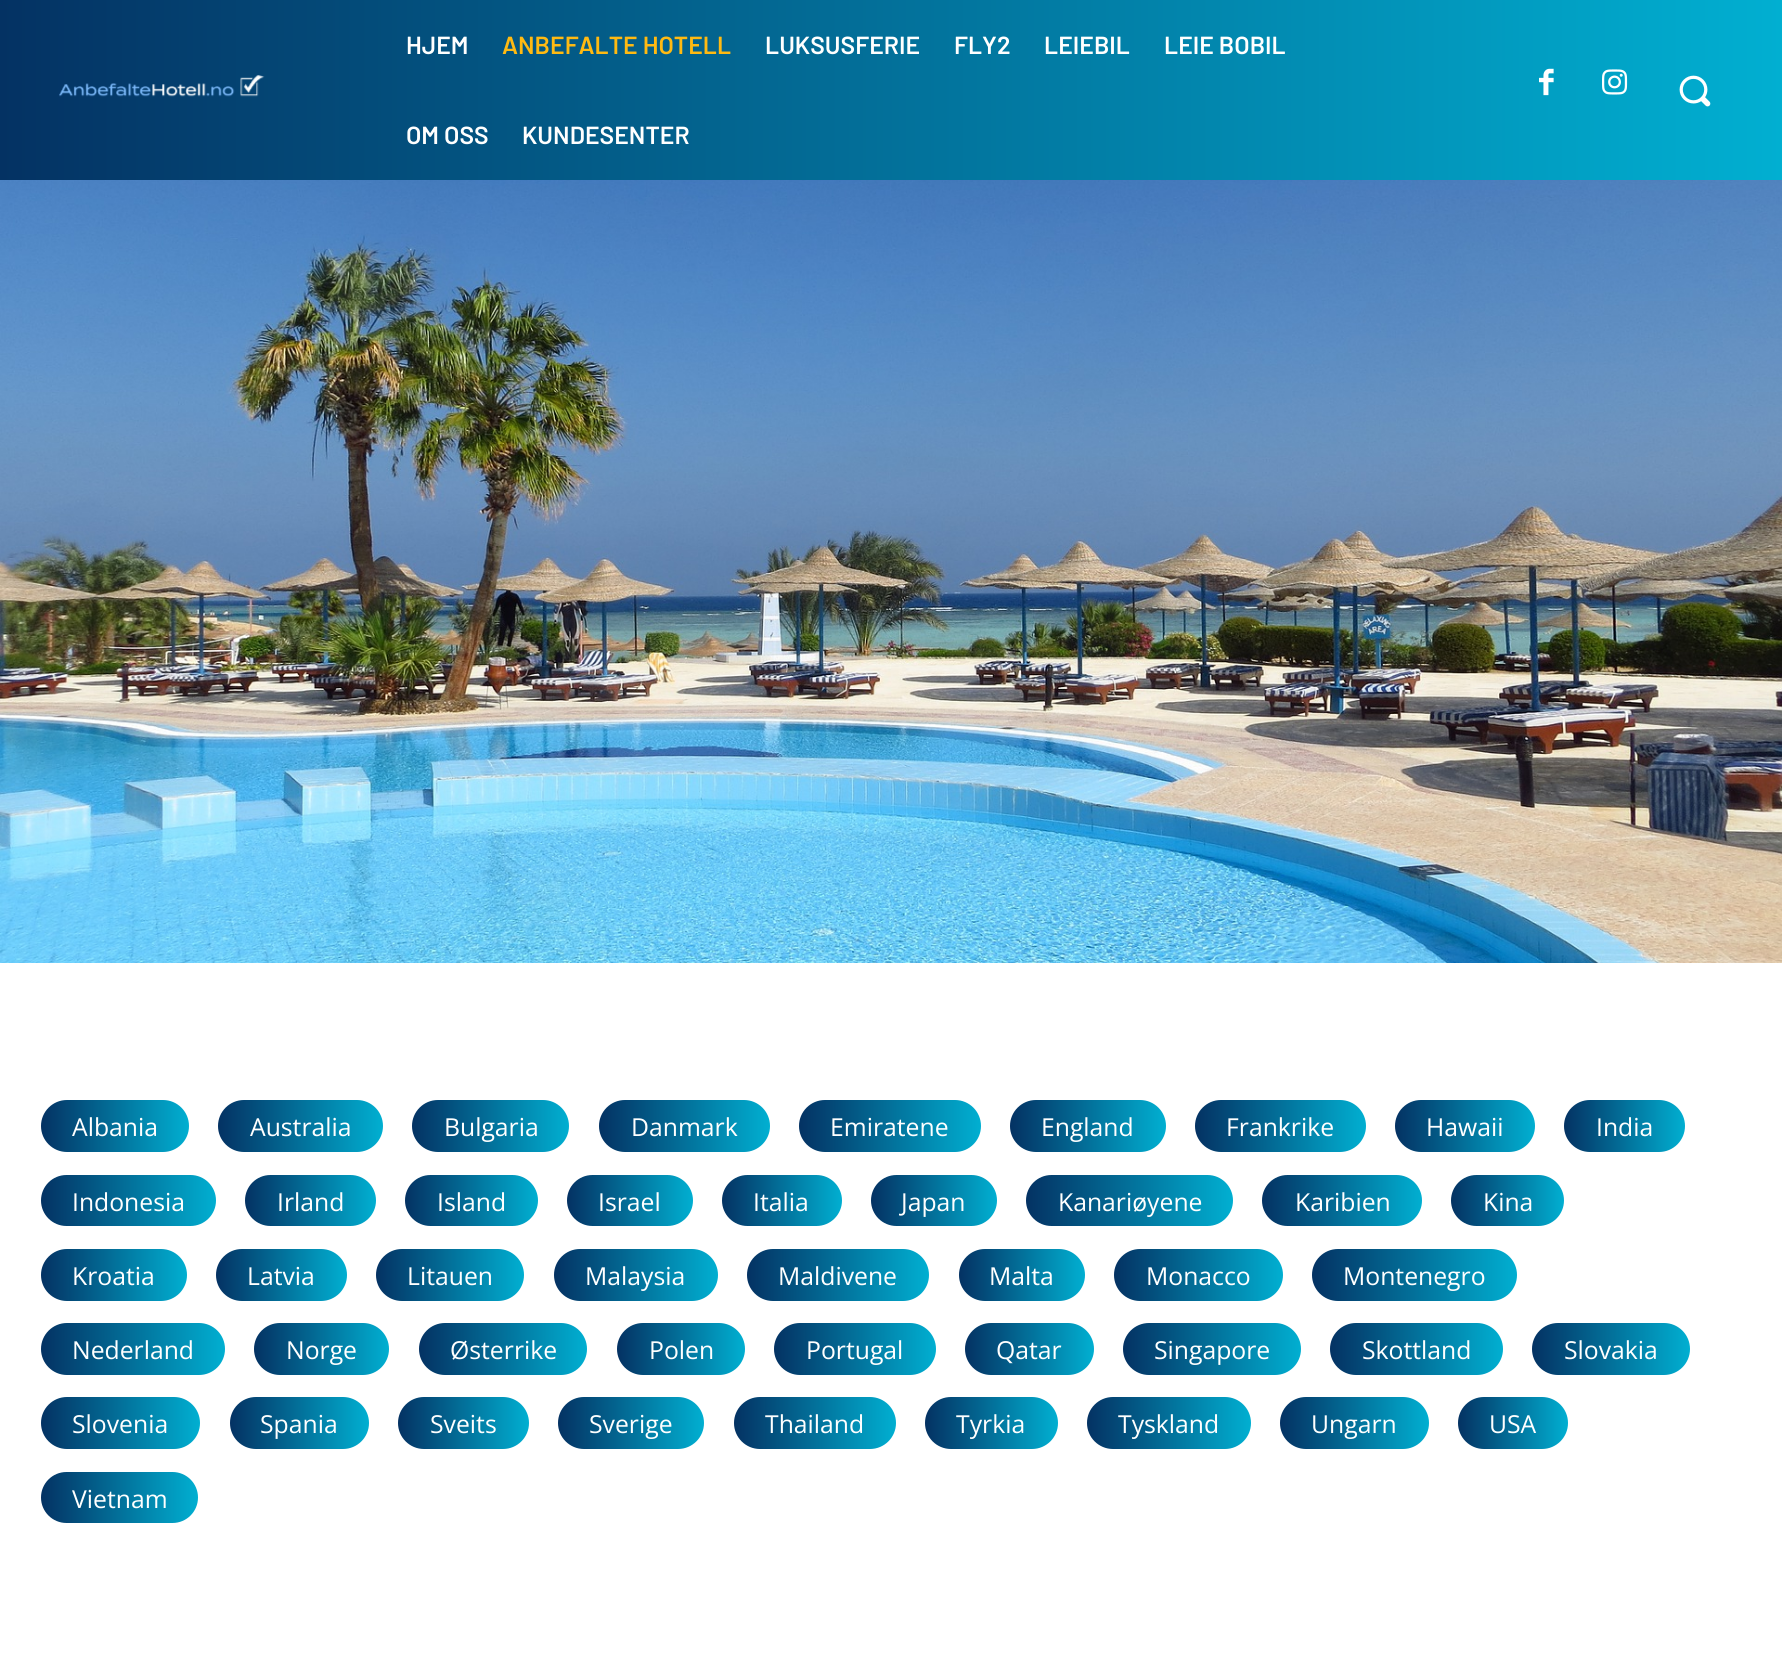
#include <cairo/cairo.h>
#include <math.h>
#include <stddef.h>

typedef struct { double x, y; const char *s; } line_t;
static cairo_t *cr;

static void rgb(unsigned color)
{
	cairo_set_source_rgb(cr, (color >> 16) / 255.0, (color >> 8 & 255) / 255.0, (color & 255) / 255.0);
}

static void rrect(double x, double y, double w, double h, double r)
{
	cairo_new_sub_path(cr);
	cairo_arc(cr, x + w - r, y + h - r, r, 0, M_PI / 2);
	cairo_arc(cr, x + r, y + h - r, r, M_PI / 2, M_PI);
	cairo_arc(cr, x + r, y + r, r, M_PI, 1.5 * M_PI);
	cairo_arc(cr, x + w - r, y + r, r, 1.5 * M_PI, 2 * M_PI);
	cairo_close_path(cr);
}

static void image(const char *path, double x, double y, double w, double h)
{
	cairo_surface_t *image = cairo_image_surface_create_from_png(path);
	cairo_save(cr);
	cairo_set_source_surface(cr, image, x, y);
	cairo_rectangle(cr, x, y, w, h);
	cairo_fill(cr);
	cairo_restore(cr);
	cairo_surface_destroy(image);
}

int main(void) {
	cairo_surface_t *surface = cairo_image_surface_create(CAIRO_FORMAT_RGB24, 1782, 1657);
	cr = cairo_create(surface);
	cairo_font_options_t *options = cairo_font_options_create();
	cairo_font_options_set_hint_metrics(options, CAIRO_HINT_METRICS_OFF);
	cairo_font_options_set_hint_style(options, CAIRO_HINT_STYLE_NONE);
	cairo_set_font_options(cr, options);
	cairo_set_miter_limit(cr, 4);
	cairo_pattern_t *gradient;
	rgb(0xffffff);
	cairo_paint(cr);
	gradient = cairo_pattern_create_linear(1782, 90, 0, 90);
	cairo_pattern_add_color_stop_rgba(gradient, 0, 0.004, 0.686, 0.82, 1);
	cairo_pattern_add_color_stop_rgba(gradient, 1, 0.016, 0.196, 0.388, 1);
	cairo_set_source(cr, gradient);
	cairo_pattern_destroy(gradient);
	cairo_rectangle(cr, 0, 0, 1782, 180);
	cairo_fill(cr);
	image("img/1.png", 59, 75, 206, 22);
	image("img/2.png", 1539, 68, 15, 28);
	image("img/3.png", 1602, 69, 26, 26);
	image("img/4.png", 1679, 75, 32, 32);
	image("img/5.png", 0, 180, 1782, 783);
	gradient = cairo_pattern_create_linear(189, 1126, 41, 1126);
	cairo_pattern_add_color_stop_rgba(gradient, 0, 0.004, 0.686, 0.82, 1);
	cairo_pattern_add_color_stop_rgba(gradient, 1, 0.016, 0.196, 0.388, 1);
	cairo_set_source(cr, gradient);
	cairo_pattern_destroy(gradient);
	rrect(41, 1100, 148, 52, 26);
	cairo_fill(cr);
	gradient = cairo_pattern_create_linear(383, 1126, 218, 1126);
	cairo_pattern_add_color_stop_rgba(gradient, 0, 0.004, 0.686, 0.82, 1);
	cairo_pattern_add_color_stop_rgba(gradient, 1, 0.016, 0.196, 0.388, 1);
	cairo_set_source(cr, gradient);
	cairo_pattern_destroy(gradient);
	rrect(218, 1100, 165, 52, 26);
	cairo_fill(cr);
	gradient = cairo_pattern_create_linear(569, 1126, 412, 1126);
	cairo_pattern_add_color_stop_rgba(gradient, 0, 0.004, 0.686, 0.82, 1);
	cairo_pattern_add_color_stop_rgba(gradient, 1, 0.016, 0.196, 0.388, 1);
	cairo_set_source(cr, gradient);
	cairo_pattern_destroy(gradient);
	rrect(412, 1100, 157, 52, 26);
	cairo_fill(cr);
	gradient = cairo_pattern_create_linear(770, 1126, 599, 1126);
	cairo_pattern_add_color_stop_rgba(gradient, 0, 0.004, 0.686, 0.82, 1);
	cairo_pattern_add_color_stop_rgba(gradient, 1, 0.016, 0.196, 0.388, 1);
	cairo_set_source(cr, gradient);
	cairo_pattern_destroy(gradient);
	rrect(599, 1100, 171, 52, 26);
	cairo_fill(cr);
	gradient = cairo_pattern_create_linear(981, 1126, 799, 1126);
	cairo_pattern_add_color_stop_rgba(gradient, 0, 0.004, 0.686, 0.82, 1);
	cairo_pattern_add_color_stop_rgba(gradient, 1, 0.016, 0.196, 0.388, 1);
	cairo_set_source(cr, gradient);
	cairo_pattern_destroy(gradient);
	rrect(799, 1100, 182, 52, 26);
	cairo_fill(cr);
	gradient = cairo_pattern_create_linear(1166, 1126, 1010, 1126);
	cairo_pattern_add_color_stop_rgba(gradient, 0, 0.004, 0.686, 0.82, 1);
	cairo_pattern_add_color_stop_rgba(gradient, 1, 0.016, 0.196, 0.388, 1);
	cairo_set_source(cr, gradient);
	cairo_pattern_destroy(gradient);
	rrect(1010, 1100, 156, 52, 26);
	cairo_fill(cr);
	gradient = cairo_pattern_create_linear(1366, 1126, 1195, 1126);
	cairo_pattern_add_color_stop_rgba(gradient, 0, 0.004, 0.686, 0.82, 1);
	cairo_pattern_add_color_stop_rgba(gradient, 1, 0.016, 0.196, 0.388, 1);
	cairo_set_source(cr, gradient);
	cairo_pattern_destroy(gradient);
	rrect(1195, 1100, 171, 52, 26);
	cairo_fill(cr);
	gradient = cairo_pattern_create_linear(1535, 1126, 1395, 1126);
	cairo_pattern_add_color_stop_rgba(gradient, 0, 0.004, 0.686, 0.82, 1);
	cairo_pattern_add_color_stop_rgba(gradient, 1, 0.016, 0.196, 0.388, 1);
	cairo_set_source(cr, gradient);
	cairo_pattern_destroy(gradient);
	rrect(1395, 1100, 140, 52, 26);
	cairo_fill(cr);
	gradient = cairo_pattern_create_linear(1685, 1126, 1564, 1126);
	cairo_pattern_add_color_stop_rgba(gradient, 0, 0.004, 0.686, 0.82, 1);
	cairo_pattern_add_color_stop_rgba(gradient, 1, 0.016, 0.196, 0.388, 1);
	cairo_set_source(cr, gradient);
	cairo_pattern_destroy(gradient);
	rrect(1564, 1100, 121, 52, 26);
	cairo_fill(cr);
	gradient = cairo_pattern_create_linear(216, 1200, 41, 1200);
	cairo_pattern_add_color_stop_rgba(gradient, 0, 0.004, 0.686, 0.82, 1);
	cairo_pattern_add_color_stop_rgba(gradient, 1, 0.016, 0.196, 0.388, 1);
	cairo_set_source(cr, gradient);
	cairo_pattern_destroy(gradient);
	rrect(41, 1175, 175, 51, 25.5);
	cairo_fill(cr);
	gradient = cairo_pattern_create_linear(376, 1200, 245, 1200);
	cairo_pattern_add_color_stop_rgba(gradient, 0, 0.004, 0.686, 0.82, 1);
	cairo_pattern_add_color_stop_rgba(gradient, 1, 0.016, 0.196, 0.388, 1);
	cairo_set_source(cr, gradient);
	cairo_pattern_destroy(gradient);
	rrect(245, 1175, 131, 51, 25.5);
	cairo_fill(cr);
	gradient = cairo_pattern_create_linear(538, 1200, 405, 1200);
	cairo_pattern_add_color_stop_rgba(gradient, 0, 0.004, 0.686, 0.82, 1);
	cairo_pattern_add_color_stop_rgba(gradient, 1, 0.016, 0.196, 0.388, 1);
	cairo_set_source(cr, gradient);
	cairo_pattern_destroy(gradient);
	rrect(405, 1175, 133, 51, 25.5);
	cairo_fill(cr);
	gradient = cairo_pattern_create_linear(693, 1200, 567, 1200);
	cairo_pattern_add_color_stop_rgba(gradient, 0, 0.004, 0.686, 0.82, 1);
	cairo_pattern_add_color_stop_rgba(gradient, 1, 0.016, 0.196, 0.388, 1);
	cairo_set_source(cr, gradient);
	cairo_pattern_destroy(gradient);
	rrect(567, 1175, 126, 51, 25.5);
	cairo_fill(cr);
	gradient = cairo_pattern_create_linear(842, 1200, 722, 1200);
	cairo_pattern_add_color_stop_rgba(gradient, 0, 0.004, 0.686, 0.82, 1);
	cairo_pattern_add_color_stop_rgba(gradient, 1, 0.016, 0.196, 0.388, 1);
	cairo_set_source(cr, gradient);
	cairo_pattern_destroy(gradient);
	rrect(722, 1175, 120, 51, 25.5);
	cairo_fill(cr);
	gradient = cairo_pattern_create_linear(997, 1200, 871, 1200);
	cairo_pattern_add_color_stop_rgba(gradient, 0, 0.004, 0.686, 0.82, 1);
	cairo_pattern_add_color_stop_rgba(gradient, 1, 0.016, 0.196, 0.388, 1);
	cairo_set_source(cr, gradient);
	cairo_pattern_destroy(gradient);
	rrect(871, 1175, 126, 51, 25.5);
	cairo_fill(cr);
	gradient = cairo_pattern_create_linear(1233, 1200, 1026, 1200);
	cairo_pattern_add_color_stop_rgba(gradient, 0, 0.004, 0.686, 0.82, 1);
	cairo_pattern_add_color_stop_rgba(gradient, 1, 0.016, 0.196, 0.388, 1);
	cairo_set_source(cr, gradient);
	cairo_pattern_destroy(gradient);
	rrect(1026, 1175, 207, 51, 25.5);
	cairo_fill(cr);
	gradient = cairo_pattern_create_linear(1422, 1200, 1262, 1200);
	cairo_pattern_add_color_stop_rgba(gradient, 0, 0.004, 0.686, 0.82, 1);
	cairo_pattern_add_color_stop_rgba(gradient, 1, 0.016, 0.196, 0.388, 1);
	cairo_set_source(cr, gradient);
	cairo_pattern_destroy(gradient);
	rrect(1262, 1175, 160, 51, 25.5);
	cairo_fill(cr);
	gradient = cairo_pattern_create_linear(1564, 1200, 1451, 1200);
	cairo_pattern_add_color_stop_rgba(gradient, 0, 0.004, 0.686, 0.82, 1);
	cairo_pattern_add_color_stop_rgba(gradient, 1, 0.016, 0.196, 0.388, 1);
	cairo_set_source(cr, gradient);
	cairo_pattern_destroy(gradient);
	rrect(1451, 1175, 113, 51, 25.5);
	cairo_fill(cr);
	gradient = cairo_pattern_create_linear(187, 1275, 41, 1275);
	cairo_pattern_add_color_stop_rgba(gradient, 0, 0.004, 0.686, 0.82, 1);
	cairo_pattern_add_color_stop_rgba(gradient, 1, 0.016, 0.196, 0.388, 1);
	cairo_set_source(cr, gradient);
	cairo_pattern_destroy(gradient);
	rrect(41, 1249, 146, 52, 26);
	cairo_fill(cr);
	gradient = cairo_pattern_create_linear(347, 1275, 216, 1275);
	cairo_pattern_add_color_stop_rgba(gradient, 0, 0.004, 0.686, 0.82, 1);
	cairo_pattern_add_color_stop_rgba(gradient, 1, 0.016, 0.196, 0.388, 1);
	cairo_set_source(cr, gradient);
	cairo_pattern_destroy(gradient);
	rrect(216, 1249, 131, 52, 26);
	cairo_fill(cr);
	gradient = cairo_pattern_create_linear(524, 1275, 376, 1275);
	cairo_pattern_add_color_stop_rgba(gradient, 0, 0.004, 0.686, 0.82, 1);
	cairo_pattern_add_color_stop_rgba(gradient, 1, 0.016, 0.196, 0.388, 1);
	cairo_set_source(cr, gradient);
	cairo_pattern_destroy(gradient);
	rrect(376, 1249, 148, 52, 26);
	cairo_fill(cr);
	gradient = cairo_pattern_create_linear(718, 1275, 554, 1275);
	cairo_pattern_add_color_stop_rgba(gradient, 0, 0.004, 0.686, 0.82, 1);
	cairo_pattern_add_color_stop_rgba(gradient, 1, 0.016, 0.196, 0.388, 1);
	cairo_set_source(cr, gradient);
	cairo_pattern_destroy(gradient);
	rrect(554, 1249, 164, 52, 26);
	cairo_fill(cr);
	gradient = cairo_pattern_create_linear(929, 1275, 747, 1275);
	cairo_pattern_add_color_stop_rgba(gradient, 0, 0.004, 0.686, 0.82, 1);
	cairo_pattern_add_color_stop_rgba(gradient, 1, 0.016, 0.196, 0.388, 1);
	cairo_set_source(cr, gradient);
	cairo_pattern_destroy(gradient);
	rrect(747, 1249, 182, 52, 26);
	cairo_fill(cr);
	gradient = cairo_pattern_create_linear(1085, 1275, 959, 1275);
	cairo_pattern_add_color_stop_rgba(gradient, 0, 0.004, 0.686, 0.82, 1);
	cairo_pattern_add_color_stop_rgba(gradient, 1, 0.016, 0.196, 0.388, 1);
	cairo_set_source(cr, gradient);
	cairo_pattern_destroy(gradient);
	rrect(959, 1249, 126, 52, 26);
	cairo_fill(cr);
	gradient = cairo_pattern_create_linear(1283, 1275, 1114, 1275);
	cairo_pattern_add_color_stop_rgba(gradient, 0, 0.004, 0.686, 0.82, 1);
	cairo_pattern_add_color_stop_rgba(gradient, 1, 0.016, 0.196, 0.388, 1);
	cairo_set_source(cr, gradient);
	cairo_pattern_destroy(gradient);
	rrect(1114, 1249, 169, 52, 26);
	cairo_fill(cr);
	gradient = cairo_pattern_create_linear(1517, 1275, 1312, 1275);
	cairo_pattern_add_color_stop_rgba(gradient, 0, 0.004, 0.686, 0.82, 1);
	cairo_pattern_add_color_stop_rgba(gradient, 1, 0.016, 0.196, 0.388, 1);
	cairo_set_source(cr, gradient);
	cairo_pattern_destroy(gradient);
	rrect(1312, 1249, 205, 52, 26);
	cairo_fill(cr);
	gradient = cairo_pattern_create_linear(225, 1349, 41, 1349);
	cairo_pattern_add_color_stop_rgba(gradient, 0, 0.004, 0.686, 0.82, 1);
	cairo_pattern_add_color_stop_rgba(gradient, 1, 0.016, 0.196, 0.388, 1);
	cairo_set_source(cr, gradient);
	cairo_pattern_destroy(gradient);
	rrect(41, 1323, 184, 52, 26);
	cairo_fill(cr);
	gradient = cairo_pattern_create_linear(389, 1349, 254, 1349);
	cairo_pattern_add_color_stop_rgba(gradient, 0, 0.004, 0.686, 0.82, 1);
	cairo_pattern_add_color_stop_rgba(gradient, 1, 0.016, 0.196, 0.388, 1);
	cairo_set_source(cr, gradient);
	cairo_pattern_destroy(gradient);
	rrect(254, 1323, 135, 52, 26);
	cairo_fill(cr);
	gradient = cairo_pattern_create_linear(587, 1349, 419, 1349);
	cairo_pattern_add_color_stop_rgba(gradient, 0, 0.004, 0.686, 0.82, 1);
	cairo_pattern_add_color_stop_rgba(gradient, 1, 0.016, 0.196, 0.388, 1);
	cairo_set_source(cr, gradient);
	cairo_pattern_destroy(gradient);
	rrect(419, 1323, 168, 52, 26);
	cairo_fill(cr);
	gradient = cairo_pattern_create_linear(745, 1349, 617, 1349);
	cairo_pattern_add_color_stop_rgba(gradient, 0, 0.004, 0.686, 0.82, 1);
	cairo_pattern_add_color_stop_rgba(gradient, 1, 0.016, 0.196, 0.388, 1);
	cairo_set_source(cr, gradient);
	cairo_pattern_destroy(gradient);
	rrect(617, 1323, 128, 52, 26);
	cairo_fill(cr);
	gradient = cairo_pattern_create_linear(936, 1349, 774, 1349);
	cairo_pattern_add_color_stop_rgba(gradient, 0, 0.004, 0.686, 0.82, 1);
	cairo_pattern_add_color_stop_rgba(gradient, 1, 0.016, 0.196, 0.388, 1);
	cairo_set_source(cr, gradient);
	cairo_pattern_destroy(gradient);
	rrect(774, 1323, 162, 52, 26);
	cairo_fill(cr);
	gradient = cairo_pattern_create_linear(1094, 1349, 965, 1349);
	cairo_pattern_add_color_stop_rgba(gradient, 0, 0.004, 0.686, 0.82, 1);
	cairo_pattern_add_color_stop_rgba(gradient, 1, 0.016, 0.196, 0.388, 1);
	cairo_set_source(cr, gradient);
	cairo_pattern_destroy(gradient);
	rrect(965, 1323, 129, 52, 26);
	cairo_fill(cr);
	gradient = cairo_pattern_create_linear(1301, 1349, 1123, 1349);
	cairo_pattern_add_color_stop_rgba(gradient, 0, 0.004, 0.686, 0.82, 1);
	cairo_pattern_add_color_stop_rgba(gradient, 1, 0.016, 0.196, 0.388, 1);
	cairo_set_source(cr, gradient);
	cairo_pattern_destroy(gradient);
	rrect(1123, 1323, 178, 52, 26);
	cairo_fill(cr);
	gradient = cairo_pattern_create_linear(1503, 1349, 1330, 1349);
	cairo_pattern_add_color_stop_rgba(gradient, 0, 0.004, 0.686, 0.82, 1);
	cairo_pattern_add_color_stop_rgba(gradient, 1, 0.016, 0.196, 0.388, 1);
	cairo_set_source(cr, gradient);
	cairo_pattern_destroy(gradient);
	rrect(1330, 1323, 173, 52, 26);
	cairo_fill(cr);
	gradient = cairo_pattern_create_linear(1690, 1349, 1532, 1349);
	cairo_pattern_add_color_stop_rgba(gradient, 0, 0.004, 0.686, 0.82, 1);
	cairo_pattern_add_color_stop_rgba(gradient, 1, 0.016, 0.196, 0.388, 1);
	cairo_set_source(cr, gradient);
	cairo_pattern_destroy(gradient);
	rrect(1532, 1323, 158, 52, 26);
	cairo_fill(cr);
	gradient = cairo_pattern_create_linear(200, 1423, 41, 1423);
	cairo_pattern_add_color_stop_rgba(gradient, 0, 0.004, 0.686, 0.82, 1);
	cairo_pattern_add_color_stop_rgba(gradient, 1, 0.016, 0.196, 0.388, 1);
	cairo_set_source(cr, gradient);
	cairo_pattern_destroy(gradient);
	rrect(41, 1397, 159, 52, 26);
	cairo_fill(cr);
	gradient = cairo_pattern_create_linear(369, 1423, 230, 1423);
	cairo_pattern_add_color_stop_rgba(gradient, 0, 0.004, 0.686, 0.82, 1);
	cairo_pattern_add_color_stop_rgba(gradient, 1, 0.016, 0.196, 0.388, 1);
	cairo_set_source(cr, gradient);
	cairo_pattern_destroy(gradient);
	rrect(230, 1397, 139, 52, 26);
	cairo_fill(cr);
	gradient = cairo_pattern_create_linear(529, 1423, 398, 1423);
	cairo_pattern_add_color_stop_rgba(gradient, 0, 0.004, 0.686, 0.82, 1);
	cairo_pattern_add_color_stop_rgba(gradient, 1, 0.016, 0.196, 0.388, 1);
	cairo_set_source(cr, gradient);
	cairo_pattern_destroy(gradient);
	rrect(398, 1397, 131, 52, 26);
	cairo_fill(cr);
	gradient = cairo_pattern_create_linear(704, 1423, 558, 1423);
	cairo_pattern_add_color_stop_rgba(gradient, 0, 0.004, 0.686, 0.82, 1);
	cairo_pattern_add_color_stop_rgba(gradient, 1, 0.016, 0.196, 0.388, 1);
	cairo_set_source(cr, gradient);
	cairo_pattern_destroy(gradient);
	rrect(558, 1397, 146, 52, 26);
	cairo_fill(cr);
	gradient = cairo_pattern_create_linear(896, 1423, 734, 1423);
	cairo_pattern_add_color_stop_rgba(gradient, 0, 0.004, 0.686, 0.82, 1);
	cairo_pattern_add_color_stop_rgba(gradient, 1, 0.016, 0.196, 0.388, 1);
	cairo_set_source(cr, gradient);
	cairo_pattern_destroy(gradient);
	rrect(734, 1397, 162, 52, 26);
	cairo_fill(cr);
	gradient = cairo_pattern_create_linear(1058, 1423, 925, 1423);
	cairo_pattern_add_color_stop_rgba(gradient, 0, 0.004, 0.686, 0.82, 1);
	cairo_pattern_add_color_stop_rgba(gradient, 1, 0.016, 0.196, 0.388, 1);
	cairo_set_source(cr, gradient);
	cairo_pattern_destroy(gradient);
	rrect(925, 1397, 133, 52, 26);
	cairo_fill(cr);
	gradient = cairo_pattern_create_linear(1251, 1423, 1087, 1423);
	cairo_pattern_add_color_stop_rgba(gradient, 0, 0.004, 0.686, 0.82, 1);
	cairo_pattern_add_color_stop_rgba(gradient, 1, 0.016, 0.196, 0.388, 1);
	cairo_set_source(cr, gradient);
	cairo_pattern_destroy(gradient);
	rrect(1087, 1397, 164, 52, 26);
	cairo_fill(cr);
	gradient = cairo_pattern_create_linear(1429, 1423, 1280, 1423);
	cairo_pattern_add_color_stop_rgba(gradient, 0, 0.004, 0.686, 0.82, 1);
	cairo_pattern_add_color_stop_rgba(gradient, 1, 0.016, 0.196, 0.388, 1);
	cairo_set_source(cr, gradient);
	cairo_pattern_destroy(gradient);
	rrect(1280, 1397, 149, 52, 26);
	cairo_fill(cr);
	gradient = cairo_pattern_create_linear(1568, 1423, 1458, 1423);
	cairo_pattern_add_color_stop_rgba(gradient, 0, 0.004, 0.686, 0.82, 1);
	cairo_pattern_add_color_stop_rgba(gradient, 1, 0.016, 0.196, 0.388, 1);
	cairo_set_source(cr, gradient);
	cairo_pattern_destroy(gradient);
	rrect(1458, 1397, 110, 52, 26);
	cairo_fill(cr);
	gradient = cairo_pattern_create_linear(198, 1497, 41, 1497);
	cairo_pattern_add_color_stop_rgba(gradient, 0, 0.004, 0.686, 0.82, 1);
	cairo_pattern_add_color_stop_rgba(gradient, 1, 0.016, 0.196, 0.388, 1);
	cairo_set_source(cr, gradient);
	cairo_pattern_destroy(gradient);
	rrect(41, 1472, 157, 51, 25.5);
	cairo_fill(cr);
	cairo_select_font_face(cr, "Barlow SemiBold", CAIRO_FONT_SLANT_NORMAL, CAIRO_FONT_WEIGHT_NORMAL);
	cairo_set_font_size(cr, 24.75);
	rgb(0xffffff);
	cairo_move_to(cr, 406, 54);
	cairo_show_text(cr, "HJEM");
	rgb(0xffba12);
	cairo_move_to(cr, 502, 54);
	cairo_show_text(cr, "ANBEFALTE HOTELL");
	rgb(0xffffff);
	{
		static const line_t items[] = {
			{765, 54, "LUKSUSFERIE"},
			{954, 54, "FLY2"},
			{1044, 54, "LEIEBIL"},
			{1164, 54, "LEIE BOBIL"},
			{406, 144, "OM OSS"},
			{522, 144, "KUNDESENTER"},
		};
		for (size_t i = 0; i < sizeof items / sizeof *items; i++) {
			cairo_move_to(cr, items[i].x, items[i].y);
			cairo_show_text(cr, items[i].s);
		}
	}
	cairo_select_font_face(cr, "Open Sans", CAIRO_FONT_SLANT_NORMAL, CAIRO_FONT_WEIGHT_NORMAL);
	{
		static const line_t items[] = {
			{72, 1136, "Albania"},
			{250, 1136, "Australia"},
			{444, 1136, "Bulgaria"},
			{631, 1136, "Danmark"},
			{830, 1136, "Emiratene"},
			{1041, 1136, "England"},
			{1226, 1136, "Frankrike"},
			{1426, 1136, "Hawaii"},
			{1596, 1136, "India"},
			{72, 1211, "Indonesia"},
			{277, 1211, "Irland"},
			{437, 1211, "Island"},
			{598, 1211, "Israel"},
			{753, 1211, "Italia"},
			{901, 1211, "Japan"},
			{1058, 1211, "Kanariøyene"},
			{1295, 1211, "Karibien"},
			{1483, 1211, "Kina"},
			{72, 1285, "Kroatia"},
			{247, 1285, "Latvia"},
			{407, 1285, "Litauen"},
			{585, 1285, "Malaysia"},
			{778, 1285, "Maldivene"},
			{989, 1285, "Malta"},
			{1146, 1285, "Monacco"},
			{1343, 1285, "Montenegro"},
			{72, 1359, "Nederland"},
			{286, 1359, "Norge"},
			{450, 1359, "Østerrike"},
			{649, 1359, "Polen"},
			{806, 1359, "Portugal"},
			{996, 1359, "Qatar"},
			{1154, 1359, "Singapore"},
			{1362, 1359, "Skottland"},
			{1564, 1359, "Slovakia"},
			{72, 1433, "Slovenia"},
			{260, 1433, "Spania"},
			{430, 1433, "Sveits"},
			{589, 1433, "Sverige"},
			{765, 1433, "Thailand"},
			{956, 1433, "Tyrkia"},
			{1118, 1433, "Tyskland"},
			{1311, 1433, "Ungarn"},
			{1489, 1433, "USA"},
			{72, 1508, "Vietnam"},
		};
		for (size_t i = 0; i < sizeof items / sizeof *items; i++) {
			cairo_move_to(cr, items[i].x, items[i].y);
			cairo_show_text(cr, items[i].s);
		}
	}
	cairo_surface_write_to_png(surface, "page.png");
	cairo_font_options_destroy(options);
	cairo_destroy(cr);
	cairo_surface_destroy(surface);
	return 0;
}
